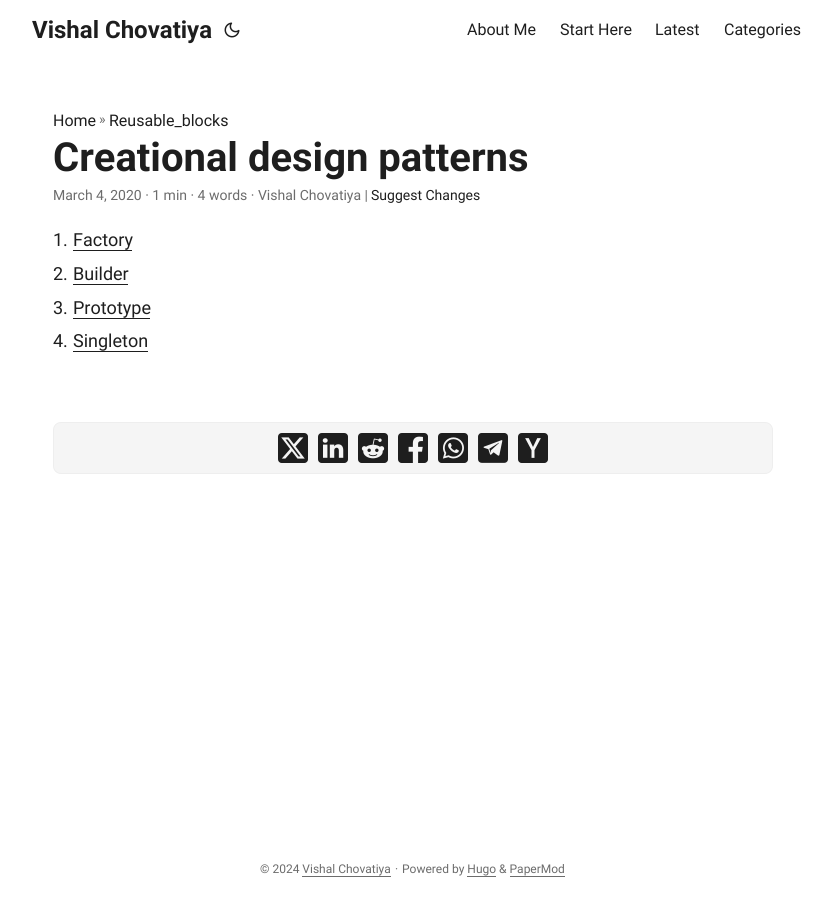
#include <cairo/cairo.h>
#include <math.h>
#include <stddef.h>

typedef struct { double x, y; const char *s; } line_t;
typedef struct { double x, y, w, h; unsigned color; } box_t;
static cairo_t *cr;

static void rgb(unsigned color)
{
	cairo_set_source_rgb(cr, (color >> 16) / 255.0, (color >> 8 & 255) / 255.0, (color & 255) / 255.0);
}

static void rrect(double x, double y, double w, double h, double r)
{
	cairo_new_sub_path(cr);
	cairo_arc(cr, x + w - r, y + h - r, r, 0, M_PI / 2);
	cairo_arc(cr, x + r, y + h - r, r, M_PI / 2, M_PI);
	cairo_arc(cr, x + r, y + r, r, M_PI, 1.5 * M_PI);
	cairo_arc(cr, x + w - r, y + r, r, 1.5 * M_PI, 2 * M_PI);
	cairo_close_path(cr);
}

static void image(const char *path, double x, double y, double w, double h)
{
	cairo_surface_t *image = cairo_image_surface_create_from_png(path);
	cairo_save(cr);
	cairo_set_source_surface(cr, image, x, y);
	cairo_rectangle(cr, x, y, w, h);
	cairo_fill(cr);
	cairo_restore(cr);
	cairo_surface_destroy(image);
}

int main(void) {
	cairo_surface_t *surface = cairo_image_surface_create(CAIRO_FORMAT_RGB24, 825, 899);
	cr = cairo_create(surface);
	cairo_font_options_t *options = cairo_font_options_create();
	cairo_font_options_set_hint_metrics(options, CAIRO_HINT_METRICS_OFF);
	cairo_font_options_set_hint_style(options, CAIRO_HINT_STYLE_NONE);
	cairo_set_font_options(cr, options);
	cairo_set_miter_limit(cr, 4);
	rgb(0xffffff);
	cairo_paint(cr);
	image("img/1.png", 224, 22, 16, 16);
	{
		static const box_t items[] = {
			{73, 250, 59, 1, 0x1e1e1e},
			{73, 284, 55, 1, 0x1e1e1e},
			{73, 318, 77, 1, 0x1e1e1e},
			{73, 351, 75, 1, 0x1e1e1e},
		};
		for (size_t i = 0; i < sizeof items / sizeof *items; i++) {
			rgb(items[i].color);
			cairo_rectangle(cr, items[i].x, items[i].y, items[i].w, items[i].h);
			cairo_fill(cr);
		}
	}
	rgb(0xf5f5f5);
	rrect(53.5, 422.5, 719, 51, 7.5);
	cairo_fill_preserve(cr);
	rgb(0xeeeeee);
	cairo_set_line_width(cr, 1);
	cairo_stroke(cr);
	image("img/2.png", 278, 433, 30, 30);
	image("img/3.png", 318, 433, 30, 30);
	image("img/4.png", 358, 433, 30, 30);
	image("img/5.png", 398, 433, 30, 30);
	image("img/6.png", 438, 433, 30, 30);
	image("img/7.png", 478, 433, 30, 30);
	image("img/8.png", 518, 433, 30, 30);
	{
		static const box_t items[] = {
			{302, 876, 89, 1, 0x6c6c6c},
			{467, 876, 29, 1, 0x6c6c6c},
			{510, 876, 55, 1, 0x6c6c6c},
		};
		for (size_t i = 0; i < sizeof items / sizeof *items; i++) {
			rgb(items[i].color);
			cairo_rectangle(cr, items[i].x, items[i].y, items[i].w, items[i].h);
			cairo_fill(cr);
		}
	}
	cairo_select_font_face(cr, "Roboto", CAIRO_FONT_SLANT_NORMAL, CAIRO_FONT_WEIGHT_BOLD);
	cairo_set_font_size(cr, 24);
	rgb(0x1e1e1e);
	cairo_move_to(cr, 32, 38);
	cairo_show_text(cr, "Vishal Chovatiya");
	cairo_select_font_face(cr, "Roboto", CAIRO_FONT_SLANT_NORMAL, CAIRO_FONT_WEIGHT_NORMAL);
	cairo_set_font_size(cr, 16);
	{
		static const line_t items[] = {
			{467, 35, "About Me"},
			{560, 35, "Start Here"},
			{655, 35, "Latest"},
			{724, 35, "Categories"},
			{53, 126, "Home"},
		};
		for (size_t i = 0; i < sizeof items / sizeof *items; i++) {
			cairo_move_to(cr, items[i].x, items[i].y);
			cairo_show_text(cr, items[i].s);
		}
	}
	cairo_set_font_size(cr, 14);
	rgb(0x6c6c6c);
	cairo_move_to(cr, 99, 124);
	cairo_show_text(cr, "»");
	cairo_set_font_size(cr, 16);
	rgb(0x1e1e1e);
	cairo_move_to(cr, 109, 126);
	cairo_show_text(cr, "Reusable_blocks");
	cairo_select_font_face(cr, "Roboto", CAIRO_FONT_SLANT_NORMAL, CAIRO_FONT_WEIGHT_BOLD);
	cairo_set_font_size(cr, 40);
	cairo_move_to(cr, 53, 171);
	cairo_show_text(cr, "Creational design patterns");
	cairo_select_font_face(cr, "Roboto", CAIRO_FONT_SLANT_NORMAL, CAIRO_FONT_WEIGHT_NORMAL);
	cairo_set_font_size(cr, 14);
	rgb(0x6c6c6c);
	cairo_move_to(cr, 53, 200);
	cairo_show_text(cr, "March 4, 2020 · 1 min · 4 words · Vishal Chovatiya |");
	rgb(0x1e1e1e);
	cairo_move_to(cr, 371, 200);
	cairo_show_text(cr, "Suggest Changes");
	cairo_set_font_size(cr, 18);
	{
		static const line_t items[] = {
			{53, 246, "1."},
			{73, 246, "Factory"},
			{53, 280, "2."},
			{73, 280, "Builder"},
			{53, 314, "3."},
			{73, 314, "Prototype"},
			{53, 347, "4."},
			{73, 347, "Singleton"},
		};
		for (size_t i = 0; i < sizeof items / sizeof *items; i++) {
			cairo_move_to(cr, items[i].x, items[i].y);
			cairo_show_text(cr, items[i].s);
		}
	}
	cairo_set_font_size(cr, 12);
	rgb(0x6c6c6c);
	{
		static const line_t items[] = {
			{260, 873, "© 2024 Vishal Chovatiya"},
			{395, 873, "·"},
			{402, 873, "Powered by Hugo & PaperMod"},
		};
		for (size_t i = 0; i < sizeof items / sizeof *items; i++) {
			cairo_move_to(cr, items[i].x, items[i].y);
			cairo_show_text(cr, items[i].s);
		}
	}
	cairo_surface_write_to_png(surface, "page.png");
	cairo_font_options_destroy(options);
	cairo_destroy(cr);
	cairo_surface_destroy(surface);
	return 0;
}
